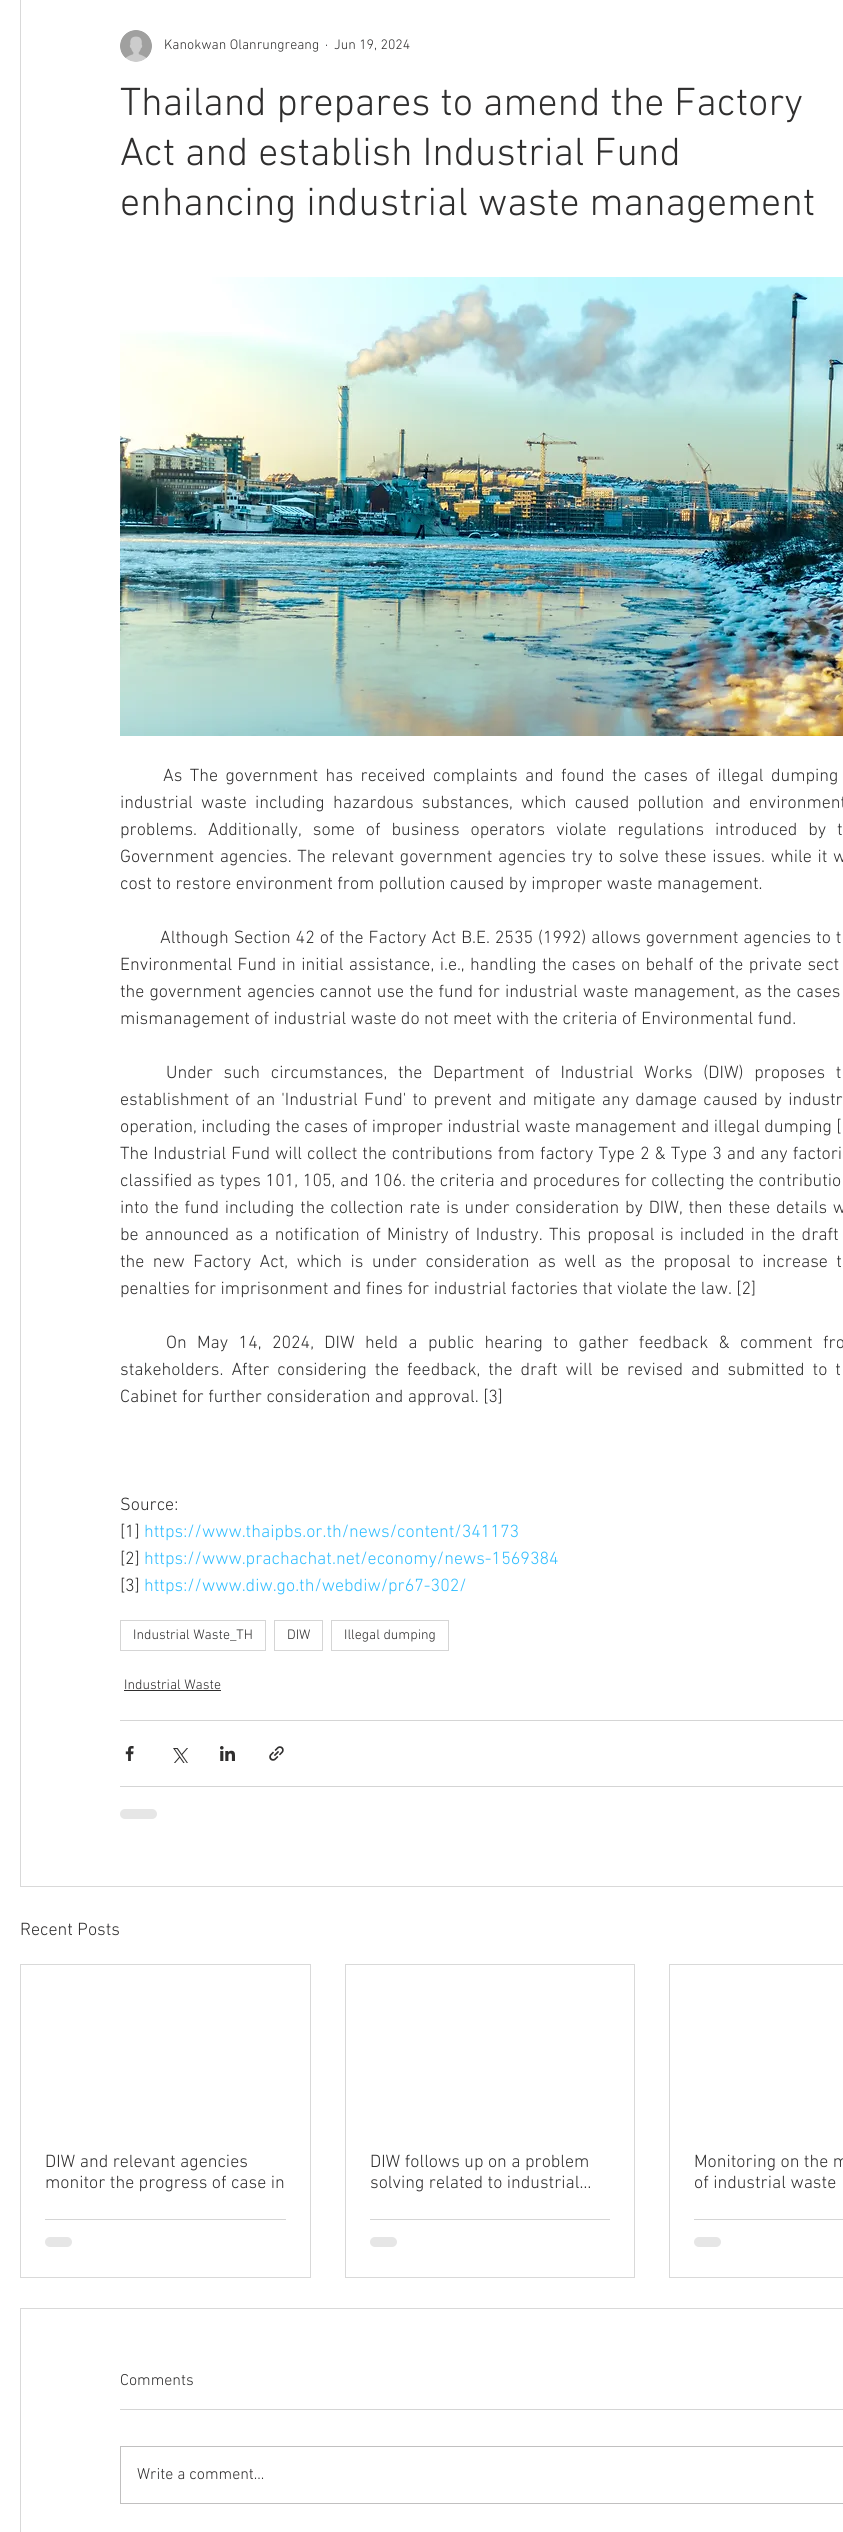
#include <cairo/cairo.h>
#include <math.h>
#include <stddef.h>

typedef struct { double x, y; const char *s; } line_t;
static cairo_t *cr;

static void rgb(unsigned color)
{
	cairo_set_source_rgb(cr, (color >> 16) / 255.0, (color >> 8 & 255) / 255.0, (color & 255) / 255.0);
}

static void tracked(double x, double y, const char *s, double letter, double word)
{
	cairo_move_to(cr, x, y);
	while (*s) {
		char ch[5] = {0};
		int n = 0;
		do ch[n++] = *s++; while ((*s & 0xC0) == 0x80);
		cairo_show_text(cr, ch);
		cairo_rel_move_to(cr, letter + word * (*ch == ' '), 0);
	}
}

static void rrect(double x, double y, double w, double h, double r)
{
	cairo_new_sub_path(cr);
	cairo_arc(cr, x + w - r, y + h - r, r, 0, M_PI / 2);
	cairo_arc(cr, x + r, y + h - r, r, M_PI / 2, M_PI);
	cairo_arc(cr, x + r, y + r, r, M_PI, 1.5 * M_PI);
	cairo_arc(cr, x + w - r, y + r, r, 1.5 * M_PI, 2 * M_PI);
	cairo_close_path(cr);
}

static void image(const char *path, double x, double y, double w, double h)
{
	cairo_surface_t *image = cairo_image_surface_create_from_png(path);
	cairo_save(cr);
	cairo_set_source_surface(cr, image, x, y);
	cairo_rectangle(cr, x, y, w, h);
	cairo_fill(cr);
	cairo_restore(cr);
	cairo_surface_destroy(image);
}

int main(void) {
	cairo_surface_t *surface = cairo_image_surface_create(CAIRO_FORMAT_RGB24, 843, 2532);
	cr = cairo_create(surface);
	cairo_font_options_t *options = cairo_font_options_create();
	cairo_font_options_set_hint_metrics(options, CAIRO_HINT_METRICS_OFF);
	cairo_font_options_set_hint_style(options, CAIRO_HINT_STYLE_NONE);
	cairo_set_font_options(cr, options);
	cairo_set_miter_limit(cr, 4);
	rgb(0xffffff);
	cairo_paint(cr);
	cairo_rectangle(cr, 20.5, -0.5, 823, 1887);
	rgb(0xd9d9d9);
	cairo_set_line_width(cr, 1);
	cairo_stroke(cr);
	image("img/1.png", 120, 30, 32, 32);
	image("img/2.png", 120, 277, 723, 459);
	cairo_rectangle(cr, 120.5, 1620.5, 145, 30);
	rgb(0xd5d5d5);
	cairo_stroke(cr);
	cairo_rectangle(cr, 274.5, 1620.5, 48, 30);
	cairo_stroke(cr);
	cairo_rectangle(cr, 331.5, 1620.5, 117, 30);
	cairo_stroke(cr);
	rgb(0x2f2e2e);
	cairo_rectangle(cr, 124, 1690, 97, 1);
	cairo_fill(cr);
	rgb(0xd5d5d5);
	cairo_rectangle(cr, 120, 1720, 723, 1);
	cairo_fill(cr);
	image("img/3.png", 125, 1746, 9, 15);
	image("img/4.png", 173, 1748, 15, 15);
	image("img/5.png", 220, 1746, 15, 15);
	image("img/6.png", 269, 1746, 15, 15);
	cairo_rectangle(cr, 120, 1786, 723, 1);
	cairo_fill(cr);
	rgb(0xe6e6e6);
	rrect(120, 1809, 37, 10, 5);
	cairo_fill(cr);
	cairo_rectangle(cr, 20.5, 1964.5, 290, 313);
	rgb(0xd9d9d9);
	cairo_stroke(cr);
	rgb(0xd5d5d5);
	cairo_rectangle(cr, 45, 2219, 241, 1);
	cairo_fill(cr);
	rgb(0xe6e6e6);
	rrect(45, 2237, 27, 10, 5);
	cairo_fill(cr);
	cairo_rectangle(cr, 345.5, 1964.5, 289, 313);
	rgb(0xd9d9d9);
	cairo_stroke(cr);
	rgb(0xd5d5d5);
	cairo_rectangle(cr, 370, 2219, 240, 1);
	cairo_fill(cr);
	rgb(0xe6e6e6);
	rrect(370, 2237, 27, 10, 5);
	cairo_fill(cr);
	cairo_rectangle(cr, 669.5, 1964.5, 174, 313);
	rgb(0xd9d9d9);
	cairo_stroke(cr);
	rgb(0xd5d5d5);
	cairo_rectangle(cr, 694, 2219, 149, 1);
	cairo_fill(cr);
	rgb(0xe6e6e6);
	rrect(694, 2237, 27, 10, 5);
	cairo_fill(cr);
	cairo_rectangle(cr, 20.5, 2308.5, 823, 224);
	rgb(0xd9d9d9);
	cairo_stroke(cr);
	rgb(0xd5d5d5);
	cairo_rectangle(cr, 120, 2409, 723, 1);
	cairo_fill(cr);
	cairo_rectangle(cr, 120.5, 2446.5, 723, 57);
	rgb(0xc1c0c0);
	cairo_stroke(cr);
	cairo_select_font_face(cr, "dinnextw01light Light", CAIRO_FONT_SLANT_NORMAL, CAIRO_FONT_WEIGHT_NORMAL);
	cairo_set_font_size(cr, 14);
	rgb(0x2f2e2e);
	{
		static const line_t items[] = {
			{164, 49, "Kanokwan Olanrungreang"},
			{325, 49, "·"},
			{334, 49, "Jun 19, 2024"},
		};
		for (size_t i = 0; i < sizeof items / sizeof *items; i++) {
			cairo_move_to(cr, items[i].x, items[i].y);
			cairo_show_text(cr, items[i].s);
		}
	}
	cairo_set_font_size(cr, 40);
	{
		static const line_t items[] = {
			{120, 115, "Thailand prepares to amend the Factory"},
			{120, 165, "Act and establish Industrial Fund"},
			{120, 215, "enhancing industrial waste management"},
		};
		for (size_t i = 0; i < sizeof items / sizeof *items; i++) {
			cairo_move_to(cr, items[i].x, items[i].y);
			cairo_show_text(cr, items[i].s);
		}
	}
	cairo_set_font_size(cr, 18);
	tracked(163, 781, "As The government has received complaints and found the cases of illegal dumping", 0, 3);
	tracked(120, 808, "industrial waste including hazardous substances, which caused pollution and environment", 0, 3.75);
	tracked(120, 835, "problems. Additionally, some of business operators violate regulations introduced by t", 0, 6.5);
	tracked(120, 862, "Government agencies. The relevant government agencies try to solve these issues. while it w", 0, 1.25);
	cairo_move_to(cr, 120, 889);
	cairo_show_text(cr, "cost to restore environment from pollution caused by improper waste management.");
	tracked(160, 943, "Although Section 42 of the Factory Act B.E. 2535 (1992) allows government agencies to t", 0, 0.5);
	tracked(120, 970, "Environmental Fund in initial assistance, i.e., handling the cases on behalf of the private sect", 0, 1);
	tracked(120, 997, "the government agencies cannot use the fund for industrial waste management, as the cases", 0, 0.6);
	cairo_move_to(cr, 120, 1024);
	cairo_show_text(cr, "mismanagement of industrial waste do not meet with the criteria of Environmental fund.");
	tracked(166, 1078, "Under such circumstances, the Department of Industrial Works (DIW) proposes t", 0, 6.25);
	tracked(120, 1105, "establishment of an 'Industrial Fund' to prevent and mitigate any damage caused by industr", 0, 1.75);
	cairo_move_to(cr, 120, 1132);
	cairo_show_text(cr, "operation, including the cases of improper industrial waste management and illegal dumping [");
	tracked(120, 1159, "The Industrial Fund will collect the contributions from factory Type 2 & Type 3 and any factori", 0, 0.6);
	tracked(120, 1186, "classified as types 101, 105, and 106. the criteria and procedures for collecting the contributio", 0, 0.25);
	tracked(120, 1213, "into the fund including the collection rate is under consideration by DIW, then these details w", 0, 1.25);
	tracked(120, 1240, "be announced as a notification of Ministry of Industry. This proposal is included in the draft", 0, 1.75);
	tracked(120, 1267, "the new Factory Act, which is under consideration as well as the proposal to increase t", 0, 4);
	cairo_move_to(cr, 120, 1294);
	cairo_show_text(cr, "penalties for imprisonment and fines for industrial factories that violate the law. [2]");
	tracked(166, 1348, "On May 14, 2024, DIW held a public hearing to gather feedback & comment fro", 0, 5.9);
	tracked(120, 1375, "stakeholders. After considering the feedback, the draft will be revised and submitted to t", 0, 3.5);
	{
		static const line_t items[] = {
			{120, 1402, "Cabinet for further consideration and approval. [3]"},
			{120, 1510, "Source:"},
			{120, 1537, "[1]"},
		};
		for (size_t i = 0; i < sizeof items / sizeof *items; i++) {
			cairo_move_to(cr, items[i].x, items[i].y);
			cairo_show_text(cr, items[i].s);
		}
	}
	rgb(0x30bdff);
	cairo_move_to(cr, 144, 1537);
	cairo_show_text(cr, "https://www.thaipbs.or.th/news/content/341173");
	rgb(0x2f2e2e);
	cairo_move_to(cr, 120, 1564);
	cairo_show_text(cr, "[2]");
	rgb(0x30bdff);
	cairo_move_to(cr, 144, 1564);
	cairo_show_text(cr, "https://www.prachachat.net/economy/news-1569384");
	rgb(0x2f2e2e);
	cairo_move_to(cr, 120, 1591);
	cairo_show_text(cr, "[3]");
	rgb(0x30bdff);
	cairo_move_to(cr, 144, 1591);
	cairo_show_text(cr, "https://www.diw.go.th/webdiw/pr67-302/");
	cairo_set_font_size(cr, 14);
	rgb(0x2f2e2e);
	{
		static const line_t items[] = {
			{133, 1639, "Industrial Waste_TH"},
			{287, 1639, "DIW"},
			{344, 1639, "Illegal dumping"},
			{124, 1689, "Industrial Waste"},
		};
		for (size_t i = 0; i < sizeof items / sizeof *items; i++) {
			cairo_move_to(cr, items[i].x, items[i].y);
			cairo_show_text(cr, items[i].s);
		}
	}
	cairo_set_font_size(cr, 18);
	{
		static const line_t items[] = {
			{20, 1935, "Recent Posts"},
			{45, 2167, "DIW and relevant agencies"},
			{45, 2188, "monitor the progress of case in"},
			{370, 2167, "DIW follows up on a problem"},
			{370, 2188, "solving related to industrial…"},
			{694, 2167, "Monitoring on the m"},
			{694, 2188, "of industrial waste"},
		};
		for (size_t i = 0; i < sizeof items / sizeof *items; i++) {
			cairo_move_to(cr, items[i].x, items[i].y);
			cairo_show_text(cr, items[i].s);
		}
	}
	cairo_set_font_size(cr, 16);
	cairo_move_to(cr, 120, 2385);
	cairo_show_text(cr, "Comments");
	cairo_move_to(cr, 137, 2479);
	cairo_show_text(cr, "Write a comment...");
	cairo_surface_write_to_png(surface, "page.png");
	cairo_font_options_destroy(options);
	cairo_destroy(cr);
	cairo_surface_destroy(surface);
	return 0;
}
